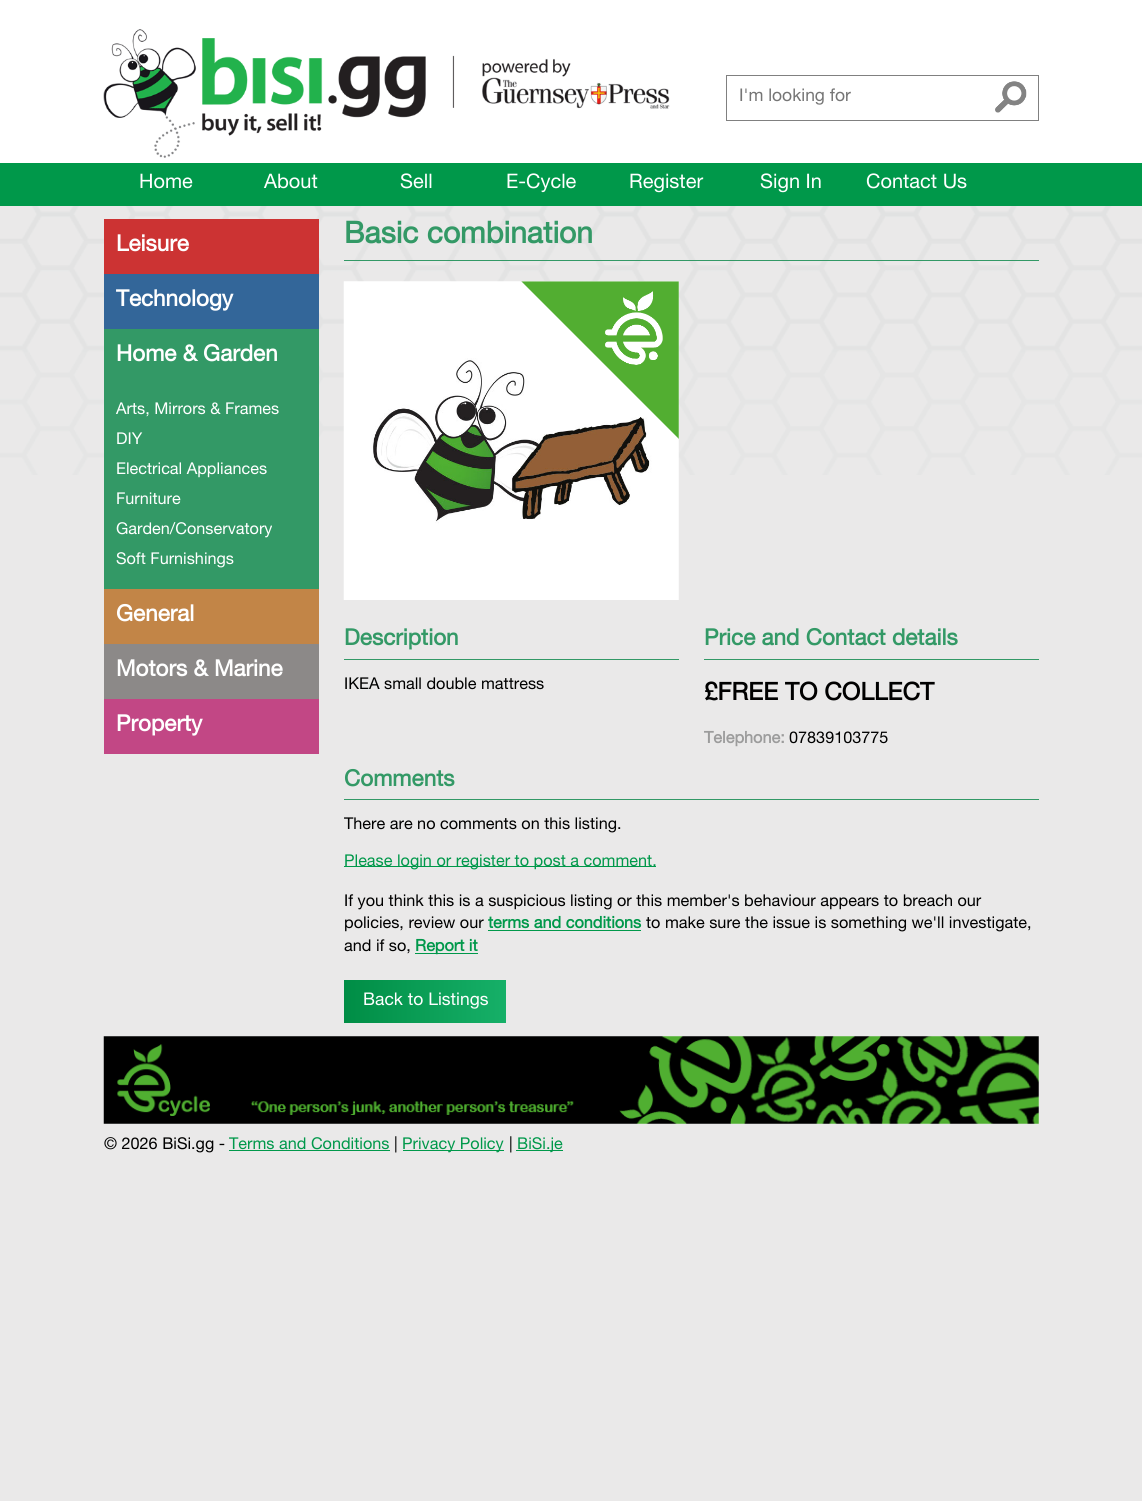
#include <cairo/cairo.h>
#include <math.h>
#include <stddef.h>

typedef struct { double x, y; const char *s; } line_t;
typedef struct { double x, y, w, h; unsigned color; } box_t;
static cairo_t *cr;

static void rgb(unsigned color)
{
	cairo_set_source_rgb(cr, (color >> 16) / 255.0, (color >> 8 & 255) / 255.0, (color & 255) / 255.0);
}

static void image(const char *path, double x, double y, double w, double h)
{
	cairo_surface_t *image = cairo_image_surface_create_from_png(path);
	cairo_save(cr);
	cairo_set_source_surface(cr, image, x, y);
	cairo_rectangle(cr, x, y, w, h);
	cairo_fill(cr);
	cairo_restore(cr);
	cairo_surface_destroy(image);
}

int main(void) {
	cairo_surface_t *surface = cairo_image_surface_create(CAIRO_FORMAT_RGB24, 1142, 1501);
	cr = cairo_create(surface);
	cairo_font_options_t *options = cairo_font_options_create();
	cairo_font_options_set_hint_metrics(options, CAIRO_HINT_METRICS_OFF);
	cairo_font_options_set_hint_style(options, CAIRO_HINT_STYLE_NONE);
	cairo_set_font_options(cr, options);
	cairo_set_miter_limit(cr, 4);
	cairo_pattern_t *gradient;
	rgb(0xeae9e9);
	cairo_paint(cr);
	image("img/1.png", 0, 206, 1142, 269);
	rgb(0xffffff);
	cairo_rectangle(cr, 0, 0, 1142, 163);
	cairo_fill(cr);
	image("img/2.png", 103, 29, 567, 129);
	cairo_rectangle(cr, 726.5, 75.5, 312, 45);
	rgb(0x808080);
	cairo_set_line_width(cr, 1);
	cairo_stroke(cr);
	image("img/3.png", 995, 81, 32, 32);
	{
		static const box_t items[] = {
			{0, 163, 1142, 43, 0x00984a},
			{104, 219, 215, 55, 0xcc3333},
			{104, 274, 215, 55, 0x336699},
			{104, 329, 215, 260, 0x339966},
			{104, 589, 215, 55, 0xc28547},
			{104, 644, 215, 55, 0x8c8988},
			{104, 699, 215, 55, 0xc24785},
			{344, 260, 695, 1, 0x339966},
		};
		for (size_t i = 0; i < sizeof items / sizeof *items; i++) {
			rgb(items[i].color);
			cairo_rectangle(cr, items[i].x, items[i].y, items[i].w, items[i].h);
			cairo_fill(cr);
		}
	}
	image("img/4.png", 343, 281, 336, 319);
	image("img/5.png", 521, 281, 158, 158);
	{
		static const box_t items[] = {
			{344, 659, 335, 1, 0x339966},
			{704, 659, 335, 1, 0x339966},
			{344, 799, 695, 1, 0x339966},
			{344, 866, 312, 1, 0x00984a},
			{488, 930, 153, 1, 0x00984a},
			{415, 953, 63, 1, 0x00984a},
		};
		for (size_t i = 0; i < sizeof items / sizeof *items; i++) {
			rgb(items[i].color);
			cairo_rectangle(cr, items[i].x, items[i].y, items[i].w, items[i].h);
			cairo_fill(cr);
		}
	}
	gradient = cairo_pattern_create_linear(344, 1001, 506, 1001);
	cairo_pattern_add_color_stop_rgba(gradient, 0, 0, 0.553, 0.271, 1);
	cairo_pattern_add_color_stop_rgba(gradient, 1, 0.086, 0.69, 0.408, 1);
	cairo_set_source(cr, gradient);
	cairo_pattern_destroy(gradient);
	cairo_rectangle(cr, 344, 980, 162, 43);
	cairo_fill(cr);
	image("img/6.png", 103, 1036, 936, 88);
	{
		static const box_t items[] = {
			{229, 1150, 161, 1, 0x00984a},
			{403, 1150, 101, 1, 0x00984a},
			{516, 1150, 47, 1, 0x00984a},
		};
		for (size_t i = 0; i < sizeof items / sizeof *items; i++) {
			rgb(items[i].color);
			cairo_rectangle(cr, items[i].x, items[i].y, items[i].w, items[i].h);
			cairo_fill(cr);
		}
	}
	cairo_select_font_face(cr, "Helvetica Neue", CAIRO_FONT_SLANT_NORMAL, CAIRO_FONT_WEIGHT_NORMAL);
	cairo_set_font_size(cr, 17.5);
	rgb(0x757575);
	cairo_move_to(cr, 739, 101);
	cairo_show_text(cr, "I'm looking for");
	cairo_set_font_size(cr, 20);
	rgb(0xffffff);
	{
		static const line_t items[] = {
			{139, 188, "Home"},
			{264, 188, "About"},
			{400, 188, "Sell"},
			{506, 188, "E-Cycle"},
			{629, 188, "Register"},
			{760, 188, "Sign In"},
			{866, 188, "Contact Us"},
		};
		for (size_t i = 0; i < sizeof items / sizeof *items; i++) {
			cairo_move_to(cr, items[i].x, items[i].y);
			cairo_show_text(cr, items[i].s);
		}
	}
	cairo_select_font_face(cr, "Helvetica Neue", CAIRO_FONT_SLANT_NORMAL, CAIRO_FONT_WEIGHT_BOLD);
	cairo_set_font_size(cr, 22.5);
	{
		static const line_t items[] = {
			{116, 251, "Leisure"},
			{116, 306, "Technology"},
			{116, 361, "Home & Garden"},
		};
		for (size_t i = 0; i < sizeof items / sizeof *items; i++) {
			cairo_move_to(cr, items[i].x, items[i].y);
			cairo_show_text(cr, items[i].s);
		}
	}
	cairo_select_font_face(cr, "Helvetica Neue", CAIRO_FONT_SLANT_NORMAL, CAIRO_FONT_WEIGHT_NORMAL);
	cairo_set_font_size(cr, 16.25);
	{
		static const line_t items[] = {
			{116, 414, "Arts, Mirrors & Frames"},
			{116, 444, "DIY"},
			{116, 474, "Electrical Appliances"},
			{116, 504, "Furniture"},
			{116, 534, "Garden/Conservatory"},
			{116, 564, "Soft Furnishings"},
		};
		for (size_t i = 0; i < sizeof items / sizeof *items; i++) {
			cairo_move_to(cr, items[i].x, items[i].y);
			cairo_show_text(cr, items[i].s);
		}
	}
	cairo_select_font_face(cr, "Helvetica Neue", CAIRO_FONT_SLANT_NORMAL, CAIRO_FONT_WEIGHT_BOLD);
	cairo_set_font_size(cr, 22.5);
	{
		static const line_t items[] = {
			{116, 621, "General"},
			{116, 676, "Motors & Marine"},
			{116, 731, "Property"},
		};
		for (size_t i = 0; i < sizeof items / sizeof *items; i++) {
			cairo_move_to(cr, items[i].x, items[i].y);
			cairo_show_text(cr, items[i].s);
		}
	}
	cairo_set_font_size(cr, 30);
	rgb(0x339966);
	cairo_move_to(cr, 344, 243);
	cairo_show_text(cr, "Basic combination");
	cairo_set_font_size(cr, 22.5);
	cairo_move_to(cr, 344, 645);
	cairo_show_text(cr, "Description");
	cairo_select_font_face(cr, "Helvetica Neue", CAIRO_FONT_SLANT_NORMAL, CAIRO_FONT_WEIGHT_NORMAL);
	cairo_set_font_size(cr, 16.25);
	rgb(0x000000);
	cairo_move_to(cr, 344, 689);
	cairo_show_text(cr, "IKEA small double mattress");
	cairo_select_font_face(cr, "Helvetica Neue", CAIRO_FONT_SLANT_NORMAL, CAIRO_FONT_WEIGHT_BOLD);
	cairo_set_font_size(cr, 22.5);
	rgb(0x339966);
	cairo_move_to(cr, 704, 645);
	cairo_show_text(cr, "Price and Contact details");
	cairo_set_font_size(cr, 24.4);
	rgb(0x000000);
	cairo_move_to(cr, 704, 700);
	cairo_show_text(cr, "£FREE TO COLLECT");
	cairo_set_font_size(cr, 16.25);
	rgb(0x9c9c9c);
	cairo_move_to(cr, 704, 743);
	cairo_show_text(cr, "Telephone:");
	cairo_select_font_face(cr, "Helvetica Neue", CAIRO_FONT_SLANT_NORMAL, CAIRO_FONT_WEIGHT_NORMAL);
	rgb(0x000000);
	cairo_move_to(cr, 789, 743);
	cairo_show_text(cr, "07839103775");
	cairo_select_font_face(cr, "Helvetica Neue", CAIRO_FONT_SLANT_NORMAL, CAIRO_FONT_WEIGHT_BOLD);
	cairo_set_font_size(cr, 22.5);
	rgb(0x339966);
	cairo_move_to(cr, 344, 786);
	cairo_show_text(cr, "Comments");
	cairo_select_font_face(cr, "Helvetica Neue", CAIRO_FONT_SLANT_NORMAL, CAIRO_FONT_WEIGHT_NORMAL);
	cairo_set_font_size(cr, 16.25);
	rgb(0x000000);
	cairo_move_to(cr, 344, 829);
	cairo_show_text(cr, "There are no comments on this listing.");
	rgb(0x00984a);
	cairo_move_to(cr, 344, 866);
	cairo_show_text(cr, "Please login or register to post a comment.");
	rgb(0x000000);
	cairo_move_to(cr, 344, 906);
	cairo_show_text(cr, "If you think this is a suspicious listing or this member's behaviour appears to breach our");
	cairo_move_to(cr, 344, 928);
	cairo_show_text(cr, "policies, review our");
	cairo_select_font_face(cr, "Helvetica Neue", CAIRO_FONT_SLANT_NORMAL, CAIRO_FONT_WEIGHT_BOLD);
	rgb(0x00984a);
	cairo_move_to(cr, 488, 928);
	cairo_show_text(cr, "terms and conditions");
	cairo_select_font_face(cr, "Helvetica Neue", CAIRO_FONT_SLANT_NORMAL, CAIRO_FONT_WEIGHT_NORMAL);
	rgb(0x000000);
	cairo_move_to(cr, 646, 928);
	cairo_show_text(cr, "to make sure the issue is something we'll investigate,");
	cairo_move_to(cr, 344, 951);
	cairo_show_text(cr, "and if so,");
	cairo_select_font_face(cr, "Helvetica Neue", CAIRO_FONT_SLANT_NORMAL, CAIRO_FONT_WEIGHT_BOLD);
	rgb(0x00984a);
	cairo_move_to(cr, 415, 951);
	cairo_show_text(cr, "Report it");
	cairo_select_font_face(cr, "Helvetica Neue", CAIRO_FONT_SLANT_NORMAL, CAIRO_FONT_WEIGHT_NORMAL);
	cairo_set_font_size(cr, 17.5);
	rgb(0xffffff);
	cairo_move_to(cr, 363, 1005);
	cairo_show_text(cr, "Back to Listings");
	cairo_set_font_size(cr, 16.25);
	rgb(0x000000);
	cairo_move_to(cr, 104, 1149);
	cairo_show_text(cr, "© 2026 BiSi.gg -");
	rgb(0x00984a);
	cairo_move_to(cr, 229, 1149);
	cairo_show_text(cr, "Terms and Conditions");
	rgb(0x000000);
	cairo_move_to(cr, 394, 1149);
	cairo_show_text(cr, "|");
	rgb(0x00984a);
	cairo_move_to(cr, 402, 1149);
	cairo_show_text(cr, "Privacy Policy");
	rgb(0x000000);
	cairo_move_to(cr, 509, 1149);
	cairo_show_text(cr, "|");
	rgb(0x00984a);
	cairo_move_to(cr, 517, 1149);
	cairo_show_text(cr, "BiSi.je");
	cairo_surface_write_to_png(surface, "page.png");
	cairo_font_options_destroy(options);
	cairo_destroy(cr);
	cairo_surface_destroy(surface);
	return 0;
}
